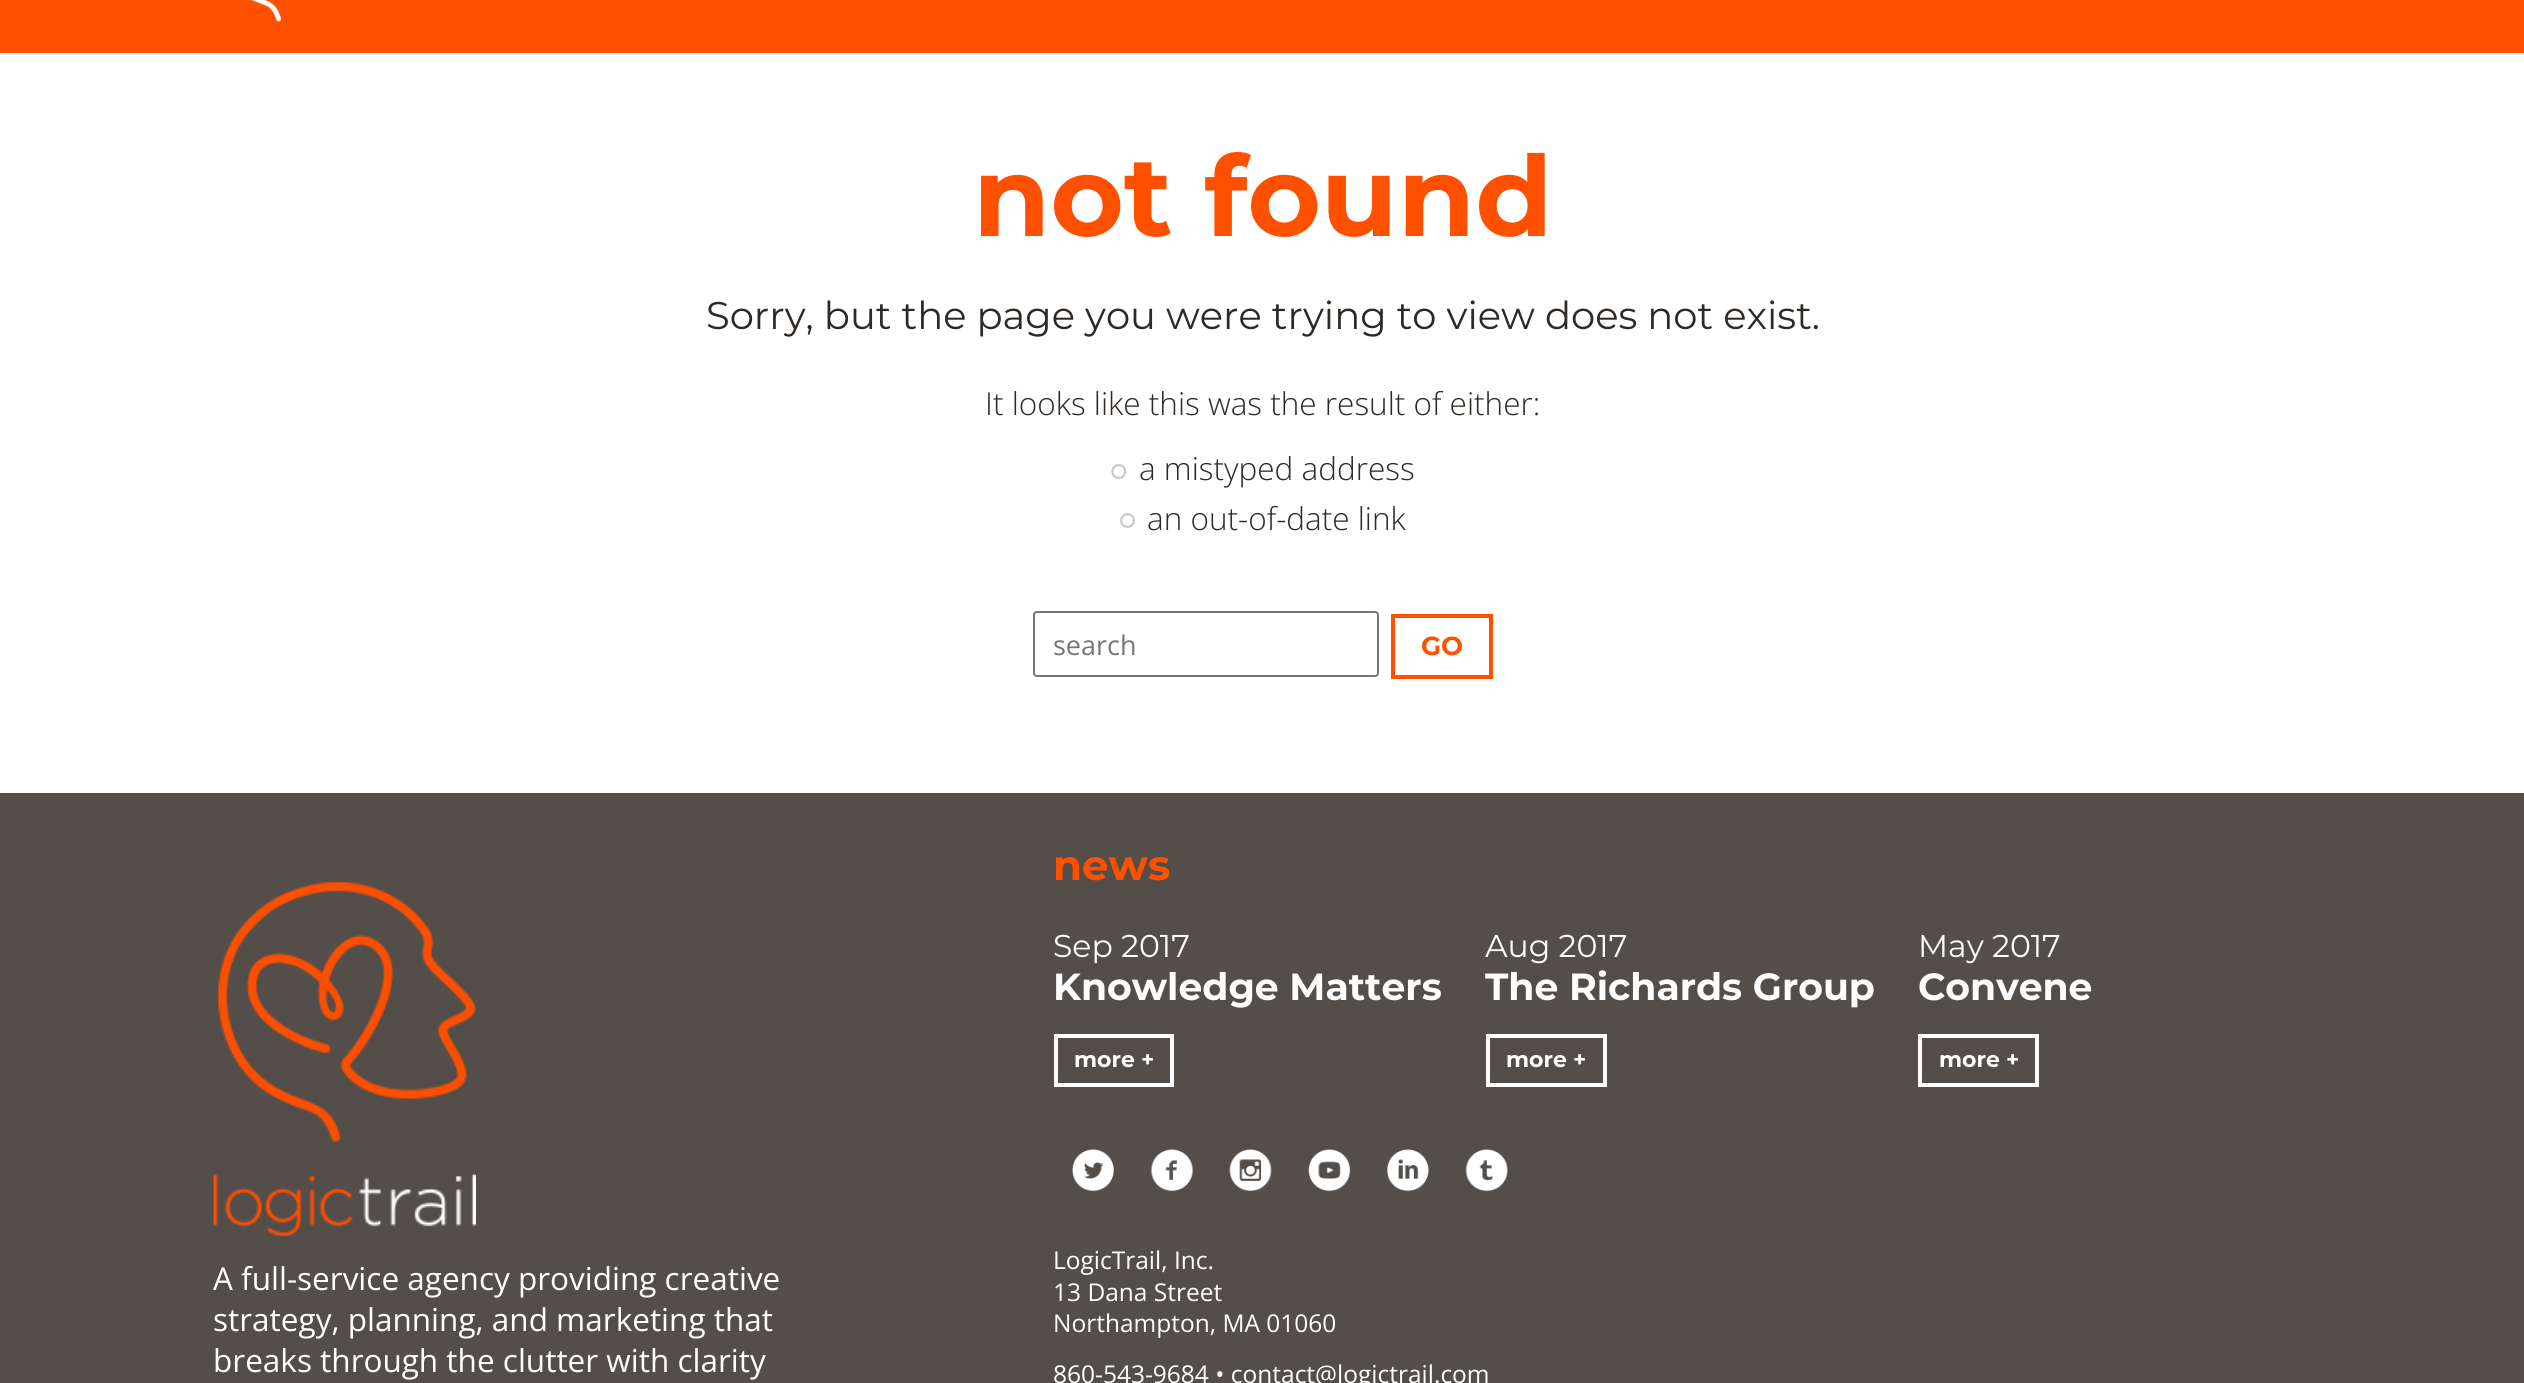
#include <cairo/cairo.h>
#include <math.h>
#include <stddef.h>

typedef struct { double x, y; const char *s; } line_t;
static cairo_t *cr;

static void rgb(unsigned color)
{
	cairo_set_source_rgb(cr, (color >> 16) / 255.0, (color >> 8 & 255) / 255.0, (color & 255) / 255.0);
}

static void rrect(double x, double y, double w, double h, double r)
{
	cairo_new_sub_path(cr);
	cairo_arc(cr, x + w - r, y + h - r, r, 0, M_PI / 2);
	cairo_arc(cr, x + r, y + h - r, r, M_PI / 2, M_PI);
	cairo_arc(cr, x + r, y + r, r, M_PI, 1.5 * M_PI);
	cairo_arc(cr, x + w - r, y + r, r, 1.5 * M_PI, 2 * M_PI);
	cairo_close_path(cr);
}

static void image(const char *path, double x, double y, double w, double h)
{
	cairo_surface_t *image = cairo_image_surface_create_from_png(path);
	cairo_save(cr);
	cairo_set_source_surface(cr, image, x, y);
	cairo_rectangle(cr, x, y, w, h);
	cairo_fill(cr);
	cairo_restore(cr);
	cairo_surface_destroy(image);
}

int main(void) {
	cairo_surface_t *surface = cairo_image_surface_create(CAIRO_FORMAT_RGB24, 2524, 1383);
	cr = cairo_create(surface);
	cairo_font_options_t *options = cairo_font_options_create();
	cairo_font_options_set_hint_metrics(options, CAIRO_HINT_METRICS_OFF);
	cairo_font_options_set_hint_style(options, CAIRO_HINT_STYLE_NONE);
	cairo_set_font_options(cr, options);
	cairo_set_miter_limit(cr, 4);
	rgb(0xffffff);
	cairo_paint(cr);
	rgb(0xff5000);
	cairo_rectangle(cr, 0, 0, 2524, 53);
	cairo_fill(cr);
	image("img/1.png", 250, 0, 32, 22);
	image("img/2.png", 1111, 464, 16, 15);
	image("img/3.png", 1120, 513, 15, 15);
	rrect(1034, 612, 344, 64, 3);
	rgb(0x767676);
	cairo_stroke(cr);
	cairo_rectangle(cr, 1393, 616, 98, 61);
	rgb(0xff5000);
	cairo_set_line_width(cr, 4);
	cairo_stroke(cr);
	rgb(0x534e4a);
	cairo_rectangle(cr, 0, 793, 2524, 590);
	cairo_fill(cr);
	cairo_rectangle(cr, 1056, 1036, 116, 49);
	rgb(0xffffff);
	cairo_stroke(cr);
	cairo_rectangle(cr, 1488, 1036, 117, 49);
	cairo_stroke(cr);
	cairo_rectangle(cr, 1920, 1036, 117, 49);
	cairo_stroke(cr);
	image("img/4.png", 1072, 1149, 42, 43);
	image("img/5.png", 1150, 1149, 43, 43);
	image("img/6.png", 1229, 1149, 43, 43);
	image("img/7.png", 1308, 1149, 43, 43);
	image("img/8.png", 1387, 1149, 42, 43);
	image("img/9.png", 1465, 1149, 43, 43);
	image("img/10.png", 213, 882, 263, 354);
	cairo_select_font_face(cr, "Montserrat", CAIRO_FONT_SLANT_NORMAL, CAIRO_FONT_WEIGHT_BOLD);
	cairo_set_font_size(cr, 112);
	rgb(0xff5000);
	cairo_move_to(cr, 973, 236);
	cairo_show_text(cr, "not found");
	cairo_select_font_face(cr, "Montserrat", CAIRO_FONT_SLANT_NORMAL, CAIRO_FONT_WEIGHT_NORMAL);
	cairo_set_font_size(cr, 38.5);
	rgb(0x2e2925);
	cairo_move_to(cr, 706, 329);
	cairo_show_text(cr, "Sorry, but the page you were trying to view does not exist.");
	cairo_select_font_face(cr, "Open Sans Light", CAIRO_FONT_SLANT_NORMAL, CAIRO_FONT_WEIGHT_NORMAL);
	cairo_set_font_size(cr, 31.5);
	{
		static const line_t items[] = {
			{985, 415, "It looks like this was the result of either:"},
			{1139, 480, "a mistyped address"},
			{1147, 530, "an out-of-date link"},
		};
		for (size_t i = 0; i < sizeof items / sizeof *items; i++) {
			cairo_move_to(cr, items[i].x, items[i].y);
			cairo_show_text(cr, items[i].s);
		}
	}
	cairo_select_font_face(cr, "Open Sans", CAIRO_FONT_SLANT_NORMAL, CAIRO_FONT_WEIGHT_NORMAL);
	cairo_set_font_size(cr, 27);
	rgb(0x757575);
	cairo_move_to(cr, 1053, 655);
	cairo_show_text(cr, "search");
	cairo_select_font_face(cr, "Montserrat", CAIRO_FONT_SLANT_NORMAL, CAIRO_FONT_WEIGHT_BOLD);
	cairo_set_font_size(cr, 26);
	rgb(0xff5000);
	cairo_move_to(cr, 1421, 655);
	cairo_show_text(cr, "GO");
	cairo_set_font_size(cr, 42);
	cairo_move_to(cr, 1053, 880);
	cairo_show_text(cr, "news");
	cairo_select_font_face(cr, "Montserrat", CAIRO_FONT_SLANT_NORMAL, CAIRO_FONT_WEIGHT_NORMAL);
	cairo_set_font_size(cr, 31.5);
	rgb(0xffffff);
	cairo_move_to(cr, 1053, 957);
	cairo_show_text(cr, "Sep 2017");
	cairo_select_font_face(cr, "Montserrat", CAIRO_FONT_SLANT_NORMAL, CAIRO_FONT_WEIGHT_BOLD);
	cairo_set_font_size(cr, 37.75);
	cairo_move_to(cr, 1053, 1000);
	cairo_show_text(cr, "Knowledge Matters");
	cairo_set_font_size(cr, 22);
	cairo_move_to(cr, 1074, 1067);
	cairo_show_text(cr, "more +");
	cairo_select_font_face(cr, "Montserrat", CAIRO_FONT_SLANT_NORMAL, CAIRO_FONT_WEIGHT_NORMAL);
	cairo_set_font_size(cr, 31.5);
	cairo_move_to(cr, 1485, 957);
	cairo_show_text(cr, "Aug 2017");
	cairo_select_font_face(cr, "Montserrat", CAIRO_FONT_SLANT_NORMAL, CAIRO_FONT_WEIGHT_BOLD);
	cairo_set_font_size(cr, 37.75);
	cairo_move_to(cr, 1485, 1000);
	cairo_show_text(cr, "The Richards Group");
	cairo_set_font_size(cr, 22);
	cairo_move_to(cr, 1506, 1067);
	cairo_show_text(cr, "more +");
	cairo_select_font_face(cr, "Montserrat", CAIRO_FONT_SLANT_NORMAL, CAIRO_FONT_WEIGHT_NORMAL);
	cairo_set_font_size(cr, 31.5);
	cairo_move_to(cr, 1918, 957);
	cairo_show_text(cr, "May 2017");
	cairo_select_font_face(cr, "Montserrat", CAIRO_FONT_SLANT_NORMAL, CAIRO_FONT_WEIGHT_BOLD);
	cairo_set_font_size(cr, 37.75);
	cairo_move_to(cr, 1918, 1000);
	cairo_show_text(cr, "Convene");
	cairo_set_font_size(cr, 22);
	cairo_move_to(cr, 1939, 1067);
	cairo_show_text(cr, "more +");
	cairo_select_font_face(cr, "Open Sans", CAIRO_FONT_SLANT_NORMAL, CAIRO_FONT_WEIGHT_NORMAL);
	cairo_set_font_size(cr, 31.5);
	{
		static const line_t items[] = {
			{213, 1290, "A full-service agency providing creative"},
			{213, 1331, "strategy, planning, and marketing that"},
			{213, 1372, "breaks through the clutter with clarity"},
		};
		for (size_t i = 0; i < sizeof items / sizeof *items; i++) {
			cairo_move_to(cr, items[i].x, items[i].y);
			cairo_show_text(cr, items[i].s);
		}
	}
	cairo_set_font_size(cr, 24.5);
	{
		static const line_t items[] = {
			{1053, 1269, "LogicTrail, Inc."},
			{1053, 1301, "13 Dana Street"},
			{1053, 1332, "Northampton, MA 01060"},
			{1053, 1383, "860-543-9684 • contact@logictrail.com"},
		};
		for (size_t i = 0; i < sizeof items / sizeof *items; i++) {
			cairo_move_to(cr, items[i].x, items[i].y);
			cairo_show_text(cr, items[i].s);
		}
	}
	cairo_surface_write_to_png(surface, "page.png");
	cairo_font_options_destroy(options);
	cairo_destroy(cr);
	cairo_surface_destroy(surface);
	return 0;
}
